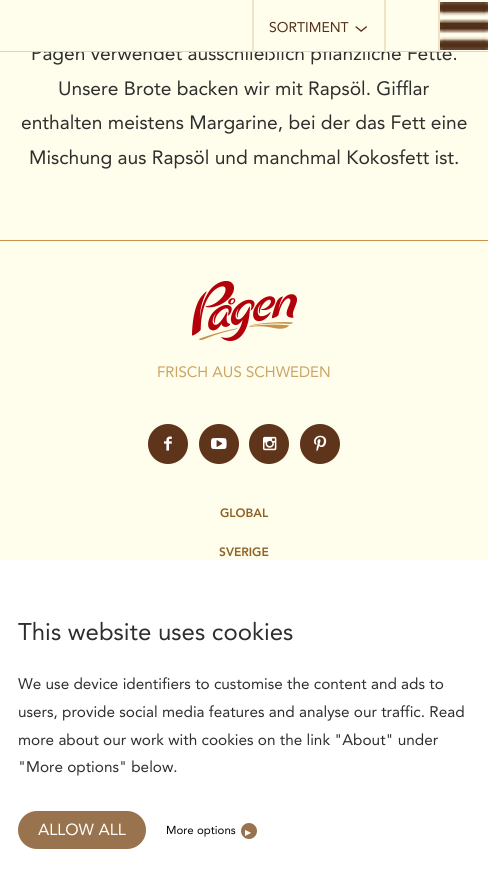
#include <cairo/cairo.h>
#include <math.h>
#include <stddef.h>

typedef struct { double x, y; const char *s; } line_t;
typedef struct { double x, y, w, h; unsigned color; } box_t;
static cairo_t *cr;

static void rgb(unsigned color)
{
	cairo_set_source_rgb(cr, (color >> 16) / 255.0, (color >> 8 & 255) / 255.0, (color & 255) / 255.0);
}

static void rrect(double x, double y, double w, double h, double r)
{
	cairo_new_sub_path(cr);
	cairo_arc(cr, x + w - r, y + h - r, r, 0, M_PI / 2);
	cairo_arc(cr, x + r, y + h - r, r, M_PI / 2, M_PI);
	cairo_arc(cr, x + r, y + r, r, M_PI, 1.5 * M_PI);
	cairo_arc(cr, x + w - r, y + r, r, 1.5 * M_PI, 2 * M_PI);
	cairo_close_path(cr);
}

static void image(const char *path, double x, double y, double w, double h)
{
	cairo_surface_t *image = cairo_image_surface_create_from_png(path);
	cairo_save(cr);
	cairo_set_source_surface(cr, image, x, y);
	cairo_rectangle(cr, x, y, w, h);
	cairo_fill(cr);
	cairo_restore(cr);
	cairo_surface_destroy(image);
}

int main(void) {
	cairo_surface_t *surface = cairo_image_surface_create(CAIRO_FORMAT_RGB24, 488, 886);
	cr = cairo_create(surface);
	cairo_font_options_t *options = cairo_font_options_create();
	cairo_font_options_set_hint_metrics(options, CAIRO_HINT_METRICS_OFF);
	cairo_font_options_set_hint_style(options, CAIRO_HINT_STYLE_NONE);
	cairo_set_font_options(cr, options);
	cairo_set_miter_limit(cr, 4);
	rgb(0xfffdeb);
	cairo_paint(cr);
	image("img/1.png", 355, 26, 12, 6);
	rgb(0xc69349);
	cairo_rectangle(cr, 0, 240, 488, 1);
	cairo_fill(cr);
	image("img/3.png", 192, 281, 105, 60);
	rgb(0x5e341b);
	cairo_arc(cr, 168, 444, 20, 0, 2 * M_PI);
	cairo_fill(cr);
	image("img/4.png", 164, 436, 8, 15);
	cairo_arc(cr, 219, 444, 20, 0, 2 * M_PI);
	cairo_fill(cr);
	image("img/5.png", 211, 438, 16, 12);
	cairo_arc(cr, 269, 444, 20, 0, 2 * M_PI);
	cairo_fill(cr);
	image("img/6.png", 263, 436, 14, 15);
	cairo_arc(cr, 320, 444, 20, 0, 2 * M_PI);
	cairo_fill(cr);
	image("img/7.png", 314, 435, 13, 17);
	rgb(0xffffff);
	cairo_rectangle(cr, 0, 560, 488, 326);
	cairo_fill(cr);
	rgb(0x98734d);
	rrect(18, 811, 128, 38, 19);
	cairo_fill(cr);
	cairo_arc(cr, 249, 831, 8, 0, 2 * M_PI);
	cairo_fill(cr);
	cairo_select_font_face(cr, "avenir", CAIRO_FONT_SLANT_NORMAL, CAIRO_FONT_WEIGHT_NORMAL);
	cairo_set_font_size(cr, 14);
	rgb(0x522f19);
	cairo_move_to(cr, 269, 32);
	cairo_show_text(cr, "SORTIMENT");
	cairo_set_font_size(cr, 19.2);
	rgb(0x2e2e2e);
	cairo_move_to(cr, 31, 60);
	cairo_show_text(cr, "Pågen verwendet ausschließlich pflanzliche Fette.");
	{
		static const box_t items[] = {
			{0, 51, 488, 1, 0xe9d2b0},
			{32, 45, 417, 6, 0xfffdec},
			{438, 0, 2, 52, 0xf0e3c3},
		};
		for (size_t i = 0; i < sizeof items / sizeof *items; i++) {
			rgb(items[i].color);
			cairo_rectangle(cr, items[i].x, items[i].y, items[i].w, items[i].h);
			cairo_fill(cr);
		}
	}
	image("img/2.png", 440, 2, 48, 48);
	cairo_rectangle(cr, 384, 0, 2, 52);
	cairo_fill(cr);
	cairo_rectangle(cr, 252, 0, 2, 52);
	cairo_fill(cr);
	rgb(0x2e2e2e);
	{
		static const line_t items[] = {
			{58, 95, "Unsere Brote backen wir mit Rapsöl. Gifflar"},
			{21, 129, "enthalten meistens Margarine, bei der das Fett eine"},
			{29, 164, "Mischung aus Rapsöl und manchmal Kokosfett ist."},
		};
		for (size_t i = 0; i < sizeof items / sizeof *items; i++) {
			cairo_move_to(cr, items[i].x, items[i].y);
			cairo_show_text(cr, items[i].s);
		}
	}
	cairo_set_font_size(cr, 15);
	rgb(0xcba463);
	cairo_move_to(cr, 157, 377);
	cairo_show_text(cr, "FRISCH AUS SCHWEDEN");
	cairo_select_font_face(cr, "avenir Black", CAIRO_FONT_SLANT_NORMAL, CAIRO_FONT_WEIGHT_NORMAL);
	cairo_set_font_size(cr, 12);
	rgb(0x8e6327);
	cairo_move_to(cr, 220, 517);
	cairo_show_text(cr, "GLOBAL");
	cairo_move_to(cr, 219, 556);
	cairo_show_text(cr, "SVERIGE");
	cairo_select_font_face(cr, "avenir", CAIRO_FONT_SLANT_NORMAL, CAIRO_FONT_WEIGHT_NORMAL);
	cairo_set_font_size(cr, 24);
	rgb(0x2e2e2e);
	cairo_move_to(cr, 18, 640);
	cairo_show_text(cr, "This website uses cookies");
	cairo_set_font_size(cr, 15.35);
	{
		static const line_t items[] = {
			{18, 689, "We use device identifiers to customise the content and ads to"},
			{18, 717, "users, provide social media features and analyse our traffic. Read"},
			{18, 745, "more about our work with cookies on the link \"About\" under"},
			{18, 772, "\"More options\" below."},
		};
		for (size_t i = 0; i < sizeof items / sizeof *items; i++) {
			cairo_move_to(cr, items[i].x, items[i].y);
			cairo_show_text(cr, items[i].s);
		}
	}
	cairo_set_font_size(cr, 16);
	rgb(0xffffff);
	cairo_move_to(cr, 38, 835);
	cairo_show_text(cr, "ALLOW ALL");
	cairo_set_font_size(cr, 11.5);
	rgb(0x000000);
	cairo_move_to(cr, 166, 834);
	cairo_show_text(cr, "More options");
	cairo_select_font_face(cr, "DejaVu Sans", CAIRO_FONT_SLANT_NORMAL, CAIRO_FONT_WEIGHT_NORMAL);
	cairo_set_font_size(cr, 8);
	rgb(0xffffff);
	cairo_move_to(cr, 245, 835);
	cairo_show_text(cr, "▶");
	cairo_surface_write_to_png(surface, "page.png");
	cairo_font_options_destroy(options);
	cairo_destroy(cr);
	cairo_surface_destroy(surface);
	return 0;
}
